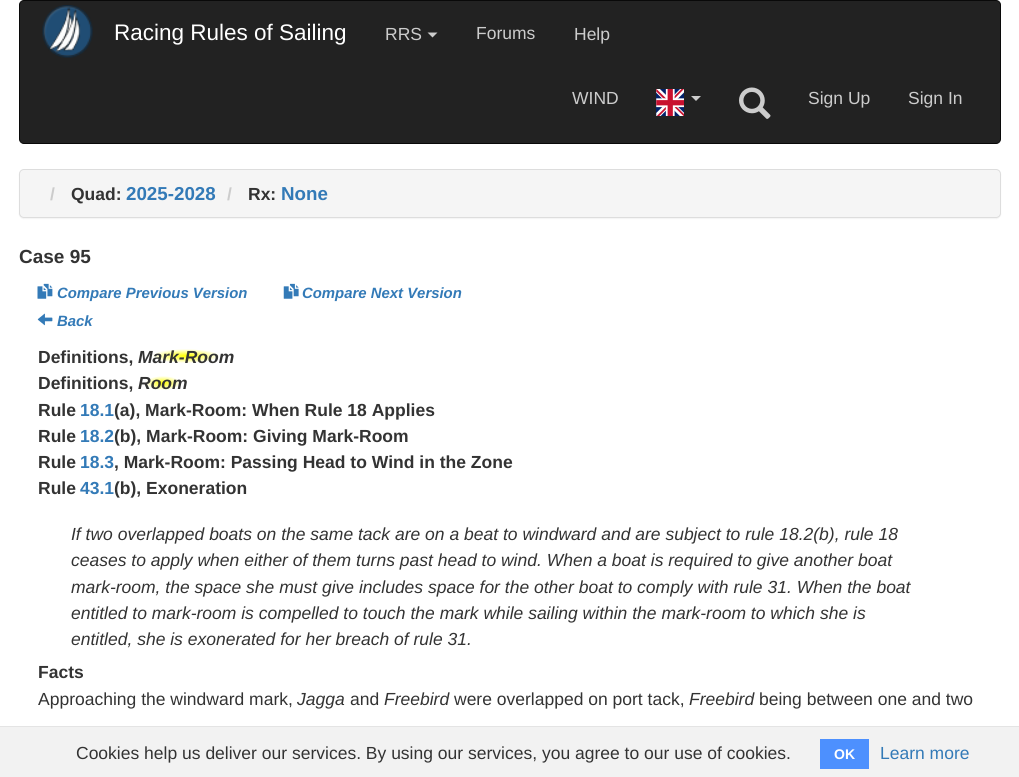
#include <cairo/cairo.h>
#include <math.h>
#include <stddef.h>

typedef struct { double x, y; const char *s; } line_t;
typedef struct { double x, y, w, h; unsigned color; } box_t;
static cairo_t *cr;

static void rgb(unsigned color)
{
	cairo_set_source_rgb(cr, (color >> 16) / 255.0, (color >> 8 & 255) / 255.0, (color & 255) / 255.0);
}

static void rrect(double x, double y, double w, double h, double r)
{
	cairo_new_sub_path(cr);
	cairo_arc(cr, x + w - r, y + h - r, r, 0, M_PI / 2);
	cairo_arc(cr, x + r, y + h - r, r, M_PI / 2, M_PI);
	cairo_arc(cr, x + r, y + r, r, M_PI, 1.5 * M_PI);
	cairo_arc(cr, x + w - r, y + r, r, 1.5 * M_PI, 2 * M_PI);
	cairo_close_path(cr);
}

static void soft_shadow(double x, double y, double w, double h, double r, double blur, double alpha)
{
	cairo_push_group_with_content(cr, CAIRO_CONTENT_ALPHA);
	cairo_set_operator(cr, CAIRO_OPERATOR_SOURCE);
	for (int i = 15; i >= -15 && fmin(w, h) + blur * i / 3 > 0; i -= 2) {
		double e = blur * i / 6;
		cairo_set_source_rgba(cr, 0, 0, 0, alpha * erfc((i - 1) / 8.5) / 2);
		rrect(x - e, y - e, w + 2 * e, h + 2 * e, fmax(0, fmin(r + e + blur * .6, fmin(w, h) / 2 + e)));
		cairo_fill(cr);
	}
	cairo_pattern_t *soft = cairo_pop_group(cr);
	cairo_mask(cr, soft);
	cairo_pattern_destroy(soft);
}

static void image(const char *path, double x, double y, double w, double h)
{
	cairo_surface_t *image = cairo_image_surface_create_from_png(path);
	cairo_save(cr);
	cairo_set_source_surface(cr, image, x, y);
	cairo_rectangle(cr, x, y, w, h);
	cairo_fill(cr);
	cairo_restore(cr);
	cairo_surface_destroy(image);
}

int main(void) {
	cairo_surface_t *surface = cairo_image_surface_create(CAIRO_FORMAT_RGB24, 1019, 777);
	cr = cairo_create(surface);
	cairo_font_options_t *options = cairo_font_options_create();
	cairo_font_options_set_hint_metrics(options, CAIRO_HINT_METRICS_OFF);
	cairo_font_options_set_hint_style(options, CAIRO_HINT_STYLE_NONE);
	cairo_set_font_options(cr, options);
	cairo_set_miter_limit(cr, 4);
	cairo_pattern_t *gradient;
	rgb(0xffffff);
	cairo_paint(cr);
	rgb(0x222222);
	rrect(19.5, 0.5, 981, 143, 4.5);
	cairo_fill_preserve(cr);
	rgb(0x090909);
	cairo_set_line_width(cr, 1);
	cairo_stroke(cr);
	image("img/1.png", 42, 5, 51, 53);
	rgb(0xcccccc);
	cairo_new_path(cr);
	cairo_move_to(cr, 427.5, 32.5);
	cairo_line_to(cr, 437.5, 32.5);
	cairo_line_to(cr, 432.5, 37.5);
	cairo_close_path(cr);
	cairo_fill(cr);
	image("img/2.png", 656, 89, 28, 27);
	cairo_new_path(cr);
	cairo_move_to(cr, 691, 96);
	cairo_line_to(cr, 701, 96);
	cairo_line_to(cr, 696, 101);
	cairo_close_path(cr);
	cairo_fill(cr);
	image("img/3.png", 739, 87, 32, 32);
	rgb(0x000000);
	soft_shadow(19, 170, 982, 49, 5, 0.5, 0.05);
	rgb(0xf5f5f5);
	rrect(19.5, 169.5, 981, 48, 4.5);
	cairo_fill_preserve(cr);
	rgb(0xdddddd);
	cairo_stroke(cr);
	image("img/4.png", 37, 283, 16, 16);
	image("img/5.png", 283, 283, 16, 16);
	image("img/6.png", 37, 313, 16, 13);
	gradient = cairo_pattern_create_radial(0, 0, 0, 0, 0, 1);
	cairo_pattern_set_matrix(gradient, &(cairo_matrix_t){1.0 / 68, 0, 0, 1.0 / 14, -1.0 * 186 / 68, -1.0 * 356 / 14});
	cairo_pattern_add_color_stop_rgba(gradient, 0, 1, 1, 0, 1);
	cairo_pattern_add_color_stop_rgba(gradient, 0.5, 1, 1, 1, 1);
	cairo_pattern_add_color_stop_rgba(gradient, 1, 1, 1, 1, 1);
	cairo_set_source(cr, gradient);
	cairo_pattern_destroy(gradient);
	cairo_rectangle(cr, 152, 349, 68, 14);
	cairo_fill(cr);
	gradient = cairo_pattern_create_radial(0, 0, 0, 0, 0, 1);
	cairo_pattern_set_matrix(gradient, &(cairo_matrix_t){1.0 / 35, 0, 0, 1.0 / 14, -1.0 * 163 / 35, -1.0 * 383 / 14});
	cairo_pattern_add_color_stop_rgba(gradient, 0, 1, 1, 0, 1);
	cairo_pattern_add_color_stop_rgba(gradient, 0.5, 1, 1, 1, 1);
	cairo_pattern_add_color_stop_rgba(gradient, 1, 1, 1, 1, 1);
	cairo_set_source(cr, gradient);
	cairo_pattern_destroy(gradient);
	cairo_rectangle(cr, 146, 376, 34, 14);
	cairo_fill(cr);
	{
		static const box_t items[] = {
			{0, 727, 1019, 50, 0xf2f2f2},
			{0, 726, 1019, 1, 0xe4e4e4},
			{820, 739, 49, 30, 0x4d90fe},
		};
		for (size_t i = 0; i < sizeof items / sizeof *items; i++) {
			rgb(items[i].color);
			cairo_rectangle(cr, items[i].x, items[i].y, items[i].w, items[i].h);
			cairo_fill(cr);
		}
	}
	cairo_select_font_face(cr, "Liberation Sans", CAIRO_FONT_SLANT_NORMAL, CAIRO_FONT_WEIGHT_NORMAL);
	cairo_set_font_size(cr, 22.5);
	rgb(0xffffff);
	cairo_move_to(cr, 114, 40);
	cairo_show_text(cr, "Racing Rules of Sailing");
	cairo_set_font_size(cr, 17.5);
	rgb(0xcccccc);
	{
		static const line_t items[] = {
			{385, 40, "RRS"},
			{476, 39, "Forums"},
			{574, 40, "Help"},
			{572, 104, "WIND"},
			{808, 104, "Sign Up"},
			{908, 104, "Sign In"},
		};
		for (size_t i = 0; i < sizeof items / sizeof *items; i++) {
			cairo_move_to(cr, items[i].x, items[i].y);
			cairo_show_text(cr, items[i].s);
		}
	}
	cairo_select_font_face(cr, "Liberation Sans", CAIRO_FONT_SLANT_NORMAL, CAIRO_FONT_WEIGHT_BOLD);
	cairo_move_to(cr, 50, 200);
	cairo_show_text(cr, "/");
	rgb(0x333333);
	cairo_move_to(cr, 71, 200);
	cairo_show_text(cr, "Quad:");
	cairo_set_font_size(cr, 18.75);
	rgb(0x337ab7);
	cairo_move_to(cr, 126, 200);
	cairo_show_text(cr, "2025-2028");
	cairo_set_font_size(cr, 17.5);
	rgb(0xcccccc);
	cairo_move_to(cr, 227, 200);
	cairo_show_text(cr, "/");
	rgb(0x333333);
	cairo_move_to(cr, 248, 200);
	cairo_show_text(cr, "Rx:");
	cairo_set_font_size(cr, 18.75);
	rgb(0x337ab7);
	cairo_move_to(cr, 281, 200);
	cairo_show_text(cr, "None");
	cairo_set_font_size(cr, 19);
	rgb(0x333333);
	cairo_move_to(cr, 19, 263);
	cairo_show_text(cr, "Case 95");
	cairo_select_font_face(cr, "Liberation Sans", CAIRO_FONT_SLANT_ITALIC, CAIRO_FONT_WEIGHT_BOLD);
	cairo_set_font_size(cr, 14.9);
	rgb(0x337ab7);
	{
		static const line_t items[] = {
			{57, 298, "Compare Previous Version"},
			{302, 298, "Compare Next Version"},
			{57, 326, "Back"},
		};
		for (size_t i = 0; i < sizeof items / sizeof *items; i++) {
			cairo_move_to(cr, items[i].x, items[i].y);
			cairo_show_text(cr, items[i].s);
		}
	}
	cairo_select_font_face(cr, "Liberation Sans", CAIRO_FONT_SLANT_NORMAL, CAIRO_FONT_WEIGHT_BOLD);
	cairo_set_font_size(cr, 17.5);
	rgb(0x333333);
	cairo_move_to(cr, 38, 363);
	cairo_show_text(cr, "Definitions,");
	cairo_select_font_face(cr, "Liberation Sans", CAIRO_FONT_SLANT_ITALIC, CAIRO_FONT_WEIGHT_BOLD);
	cairo_move_to(cr, 138, 363);
	cairo_show_text(cr, "Mark-Room");
	cairo_select_font_face(cr, "Liberation Sans", CAIRO_FONT_SLANT_NORMAL, CAIRO_FONT_WEIGHT_BOLD);
	cairo_move_to(cr, 38, 389);
	cairo_show_text(cr, "Definitions,");
	cairo_select_font_face(cr, "Liberation Sans", CAIRO_FONT_SLANT_ITALIC, CAIRO_FONT_WEIGHT_BOLD);
	cairo_move_to(cr, 138, 389);
	cairo_show_text(cr, "Room");
	cairo_select_font_face(cr, "Liberation Sans", CAIRO_FONT_SLANT_NORMAL, CAIRO_FONT_WEIGHT_BOLD);
	cairo_move_to(cr, 38, 416);
	cairo_show_text(cr, "Rule");
	rgb(0x337ab7);
	cairo_move_to(cr, 80, 416);
	cairo_show_text(cr, "18.1");
	rgb(0x333333);
	cairo_move_to(cr, 114, 416);
	cairo_show_text(cr, "(a), Mark-Room: When Rule 18 Applies");
	cairo_move_to(cr, 38, 442);
	cairo_show_text(cr, "Rule");
	rgb(0x337ab7);
	cairo_move_to(cr, 80, 442);
	cairo_show_text(cr, "18.2");
	rgb(0x333333);
	cairo_move_to(cr, 114, 442);
	cairo_show_text(cr, "(b), Mark-Room: Giving Mark-Room");
	cairo_move_to(cr, 38, 468);
	cairo_show_text(cr, "Rule");
	rgb(0x337ab7);
	cairo_move_to(cr, 80, 468);
	cairo_show_text(cr, "18.3");
	rgb(0x333333);
	cairo_move_to(cr, 114, 468);
	cairo_show_text(cr, ", Mark-Room: Passing Head to Wind in the Zone");
	cairo_move_to(cr, 38, 494);
	cairo_show_text(cr, "Rule");
	rgb(0x337ab7);
	cairo_move_to(cr, 80, 494);
	cairo_show_text(cr, "43.1");
	rgb(0x333333);
	cairo_move_to(cr, 114, 494);
	cairo_show_text(cr, "(b), Exoneration");
	cairo_select_font_face(cr, "Liberation Sans", CAIRO_FONT_SLANT_ITALIC, CAIRO_FONT_WEIGHT_NORMAL);
	{
		static const line_t items[] = {
			{71, 540, "If two overlapped boats on the same tack are on a beat to windward and are subject to rule 18.2(b), rule 18"},
			{71, 566, "ceases to apply when either of them turns past head to wind. When a boat is required to give another boat"},
			{71, 593, "mark-room, the space she must give includes space for the other boat to comply with rule 31. When the boat"},
			{71, 619, "entitled to mark-room is compelled to touch the mark while sailing within the mark-room to which she is"},
			{71, 645, "entitled, she is exonerated for her breach of rule 31."},
		};
		for (size_t i = 0; i < sizeof items / sizeof *items; i++) {
			cairo_move_to(cr, items[i].x, items[i].y);
			cairo_show_text(cr, items[i].s);
		}
	}
	cairo_select_font_face(cr, "Liberation Sans", CAIRO_FONT_SLANT_NORMAL, CAIRO_FONT_WEIGHT_BOLD);
	cairo_move_to(cr, 38, 678);
	cairo_show_text(cr, "Facts");
	cairo_select_font_face(cr, "Liberation Sans", CAIRO_FONT_SLANT_NORMAL, CAIRO_FONT_WEIGHT_NORMAL);
	cairo_move_to(cr, 38, 705);
	cairo_show_text(cr, "Approaching the windward mark,");
	cairo_select_font_face(cr, "Liberation Sans", CAIRO_FONT_SLANT_ITALIC, CAIRO_FONT_WEIGHT_NORMAL);
	cairo_move_to(cr, 297, 705);
	cairo_show_text(cr, "Jagga");
	cairo_select_font_face(cr, "Liberation Sans", CAIRO_FONT_SLANT_NORMAL, CAIRO_FONT_WEIGHT_NORMAL);
	cairo_move_to(cr, 350, 705);
	cairo_show_text(cr, "and");
	cairo_select_font_face(cr, "Liberation Sans", CAIRO_FONT_SLANT_ITALIC, CAIRO_FONT_WEIGHT_NORMAL);
	cairo_move_to(cr, 384, 705);
	cairo_show_text(cr, "Freebird");
	cairo_select_font_face(cr, "Liberation Sans", CAIRO_FONT_SLANT_NORMAL, CAIRO_FONT_WEIGHT_NORMAL);
	cairo_move_to(cr, 454, 705);
	cairo_show_text(cr, "were overlapped on port tack,");
	cairo_select_font_face(cr, "Liberation Sans", CAIRO_FONT_SLANT_ITALIC, CAIRO_FONT_WEIGHT_NORMAL);
	cairo_move_to(cr, 689, 705);
	cairo_show_text(cr, "Freebird");
	cairo_select_font_face(cr, "Liberation Sans", CAIRO_FONT_SLANT_NORMAL, CAIRO_FONT_WEIGHT_NORMAL);
	cairo_move_to(cr, 759, 705);
	cairo_show_text(cr, "being between one and two");
	cairo_move_to(cr, 76, 759);
	cairo_show_text(cr, "Cookies help us deliver our services. By using our services, you agree to our use of cookies.");
	cairo_select_font_face(cr, "Liberation Sans", CAIRO_FONT_SLANT_NORMAL, CAIRO_FONT_WEIGHT_BOLD);
	cairo_set_font_size(cr, 14);
	rgb(0xffffff);
	cairo_move_to(cr, 834, 759);
	cairo_show_text(cr, "OK");
	cairo_select_font_face(cr, "Liberation Sans", CAIRO_FONT_SLANT_NORMAL, CAIRO_FONT_WEIGHT_NORMAL);
	cairo_set_font_size(cr, 17.5);
	rgb(0x337ab7);
	cairo_move_to(cr, 880, 759);
	cairo_show_text(cr, "Learn more");
	cairo_surface_write_to_png(surface, "page.png");
	cairo_font_options_destroy(options);
	cairo_destroy(cr);
	cairo_surface_destroy(surface);
	return 0;
}
